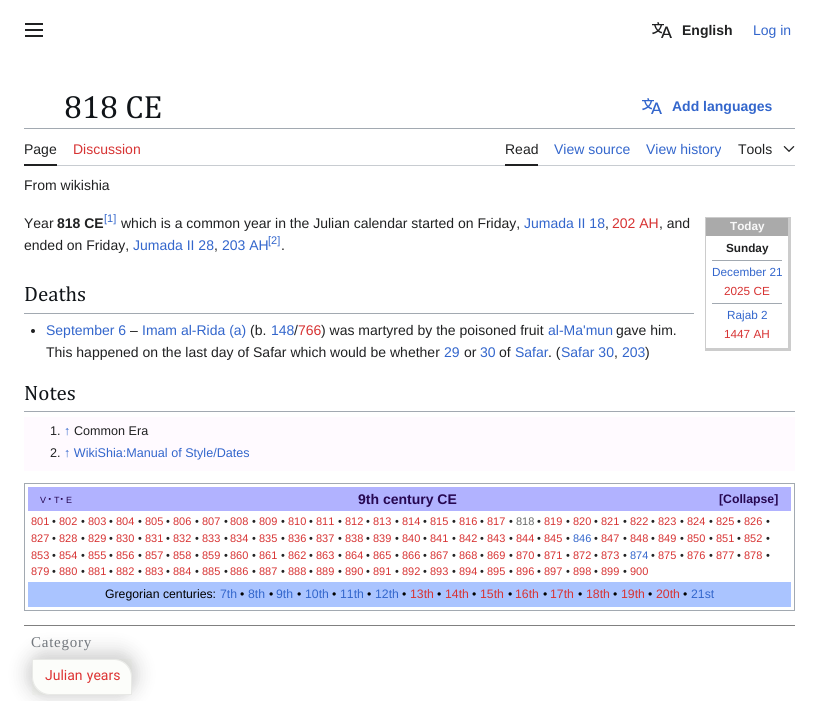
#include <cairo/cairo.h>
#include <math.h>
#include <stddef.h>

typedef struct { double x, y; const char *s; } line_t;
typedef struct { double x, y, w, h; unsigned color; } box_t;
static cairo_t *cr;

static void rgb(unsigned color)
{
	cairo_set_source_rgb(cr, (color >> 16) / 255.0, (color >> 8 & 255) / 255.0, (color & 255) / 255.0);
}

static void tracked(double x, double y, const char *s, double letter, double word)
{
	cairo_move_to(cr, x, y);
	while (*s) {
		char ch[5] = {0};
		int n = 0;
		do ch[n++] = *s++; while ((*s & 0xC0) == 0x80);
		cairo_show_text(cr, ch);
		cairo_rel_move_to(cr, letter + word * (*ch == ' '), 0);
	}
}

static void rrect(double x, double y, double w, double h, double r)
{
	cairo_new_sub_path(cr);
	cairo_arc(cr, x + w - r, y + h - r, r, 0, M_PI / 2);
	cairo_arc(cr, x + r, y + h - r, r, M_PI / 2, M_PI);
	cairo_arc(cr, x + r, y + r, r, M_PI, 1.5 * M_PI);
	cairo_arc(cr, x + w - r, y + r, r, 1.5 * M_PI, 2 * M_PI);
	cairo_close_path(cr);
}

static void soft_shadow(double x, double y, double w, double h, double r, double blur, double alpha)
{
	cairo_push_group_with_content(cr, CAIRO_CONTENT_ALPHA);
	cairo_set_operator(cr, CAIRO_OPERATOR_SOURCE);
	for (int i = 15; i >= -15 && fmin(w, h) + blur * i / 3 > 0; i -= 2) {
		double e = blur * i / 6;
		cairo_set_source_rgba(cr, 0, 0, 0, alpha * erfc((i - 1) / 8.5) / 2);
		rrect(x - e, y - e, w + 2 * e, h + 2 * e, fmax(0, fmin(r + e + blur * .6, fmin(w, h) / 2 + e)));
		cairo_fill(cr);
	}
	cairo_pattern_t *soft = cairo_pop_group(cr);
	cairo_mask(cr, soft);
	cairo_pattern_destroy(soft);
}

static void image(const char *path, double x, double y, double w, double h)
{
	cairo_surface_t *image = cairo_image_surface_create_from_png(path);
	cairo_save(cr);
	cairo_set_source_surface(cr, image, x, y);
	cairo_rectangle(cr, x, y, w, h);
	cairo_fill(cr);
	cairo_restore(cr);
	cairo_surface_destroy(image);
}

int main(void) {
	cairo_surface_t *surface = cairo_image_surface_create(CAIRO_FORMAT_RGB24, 819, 701);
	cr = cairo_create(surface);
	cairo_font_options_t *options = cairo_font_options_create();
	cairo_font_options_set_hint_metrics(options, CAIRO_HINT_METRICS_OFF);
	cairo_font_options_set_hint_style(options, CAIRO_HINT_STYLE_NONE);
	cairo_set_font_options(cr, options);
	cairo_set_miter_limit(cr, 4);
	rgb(0xffffff);
	cairo_paint(cr);
	image("img/1.png", 25, 23, 18, 14);
	image("img/2.png", 652, 22, 20, 16);
	image("img/3.png", 642, 98, 20, 16);
	{
		static const box_t items[] = {
			{24, 128, 771, 1, 0xa2a9b1},
			{57, 165, 738, 1, 0xc8ccd1},
			{24, 164, 33, 2, 0x202122},
			{505, 164, 33, 2, 0x202122},
		};
		for (size_t i = 0; i < sizeof items / sizeof *items; i++) {
			rgb(items[i].color);
			cairo_rectangle(cr, items[i].x, items[i].y, items[i].w, items[i].h);
			cairo_fill(cr);
		}
	}
	image("img/4.png", 783, 146, 12, 6);
	{
		static const box_t items[] = {
			{705, 217, 86, 1, 0xcccccc},
			{705, 217, 1, 134, 0xcccccc},
			{788, 217, 3, 134, 0xcccccc},
			{705, 348, 86, 3, 0xcccccc},
			{706, 218, 82, 18, 0xaaaaaa},
			{712, 260, 70, 1, 0xa2a9b1},
			{712, 303, 70, 1, 0xa2a9b1},
			{24, 313, 670, 1, 0xa2a9b1},
		};
		for (size_t i = 0; i < sizeof items / sizeof *items; i++) {
			rgb(items[i].color);
			cairo_rectangle(cr, items[i].x, items[i].y, items[i].w, items[i].h);
			cairo_fill(cr);
		}
	}
	rgb(0x202122);
	cairo_arc(cr, 33, 331, 2, 0, 2 * M_PI);
	cairo_fill(cr);
	rgb(0xa2a9b1);
	cairo_rectangle(cr, 24, 411, 771, 1);
	cairo_fill(cr);
	rgb(0xfffaff);
	cairo_rectangle(cr, 24, 417, 771, 54);
	cairo_fill(cr);
	cairo_rectangle(cr, 24.5, 483.5, 770, 127);
	rgb(0xa2a9b1);
	cairo_set_line_width(cr, 1);
	cairo_stroke(cr);
	{
		static const box_t items[] = {
			{28, 487, 763, 24, 0xb1b2ff},
			{28, 582, 763, 25, 0xaac4ff},
			{24, 625, 771, 1, 0x808080},
		};
		for (size_t i = 0; i < sizeof items / sizeof *items; i++) {
			rgb(items[i].color);
			cairo_rectangle(cr, items[i].x, items[i].y, items[i].w, items[i].h);
			cairo_fill(cr);
		}
	}
	cairo_save(cr);
	cairo_set_fill_rule(cr, CAIRO_FILL_RULE_EVEN_ODD);
	cairo_new_path(cr);
	cairo_move_to(cr, 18, 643);
	cairo_line_to(cr, 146, 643);
	cairo_line_to(cr, 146, 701);
	cairo_line_to(cr, 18, 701);
	cairo_close_path(cr);
	cairo_move_to(cr, 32, 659);
	cairo_line_to(cr, 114, 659);
	cairo_curve_to(cr, 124, 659, 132, 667, 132, 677);
	cairo_line_to(cr, 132, 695);
	cairo_line_to(cr, 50, 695);
	cairo_curve_to(cr, 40, 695, 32, 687, 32, 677);
	cairo_close_path(cr);
	cairo_clip(cr);
	rgb(0x000000);
	soft_shadow(28, 653, 108, 44, 22, 3, 0.05);
	cairo_restore(cr);
	cairo_save(cr);
	cairo_set_fill_rule(cr, CAIRO_FILL_RULE_EVEN_ODD);
	cairo_new_path(cr);
	cairo_move_to(cr, 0, 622);
	cairo_line_to(cr, 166, 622);
	cairo_line_to(cr, 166, 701);
	cairo_line_to(cr, 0, 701);
	cairo_close_path(cr);
	cairo_move_to(cr, 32, 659);
	cairo_line_to(cr, 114, 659);
	cairo_curve_to(cr, 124, 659, 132, 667, 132, 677);
	cairo_line_to(cr, 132, 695);
	cairo_line_to(cr, 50, 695);
	cairo_curve_to(cr, 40, 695, 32, 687, 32, 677);
	cairo_close_path(cr);
	cairo_clip(cr);
	rgb(0x000000);
	soft_shadow(22, 646, 120, 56, 28, 7.5, 0.1);
	cairo_restore(cr);
	cairo_set_source_rgba(cr, 0.545, 0.765, 0.29, 0.03);
	cairo_rectangle(cr, 32, 659, 100, 36);
	cairo_fill(cr);
	cairo_new_path(cr);
	cairo_move_to(cr, 32.5, 659.5);
	cairo_line_to(cr, 114, 659.5);
	cairo_curve_to(cr, 123.5, 659.5, 131.5, 667.5, 131.5, 677);
	cairo_line_to(cr, 131.5, 694.5);
	cairo_line_to(cr, 50, 694.5);
	cairo_curve_to(cr, 40.5, 694.5, 32.5, 686.5, 32.5, 677);
	cairo_close_path(cr);
	cairo_set_source_rgba(cr, 0, 0, 0, 0.08);
	cairo_stroke(cr);
	cairo_select_font_face(cr, "Liberation Sans", CAIRO_FONT_SLANT_NORMAL, CAIRO_FONT_WEIGHT_BOLD);
	cairo_set_font_size(cr, 14);
	rgb(0x202122);
	cairo_move_to(cr, 682, 35);
	cairo_show_text(cr, "English");
	cairo_select_font_face(cr, "Liberation Sans", CAIRO_FONT_SLANT_NORMAL, CAIRO_FONT_WEIGHT_NORMAL);
	rgb(0x3366cc);
	cairo_move_to(cr, 753, 35);
	cairo_show_text(cr, "Log in");
	cairo_select_font_face(cr, "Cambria", CAIRO_FONT_SLANT_NORMAL, CAIRO_FONT_WEIGHT_NORMAL);
	cairo_set_font_size(cr, 32.5);
	rgb(0x101418);
	cairo_move_to(cr, 64, 118);
	cairo_show_text(cr, "818 CE");
	cairo_select_font_face(cr, "Liberation Sans", CAIRO_FONT_SLANT_NORMAL, CAIRO_FONT_WEIGHT_BOLD);
	cairo_set_font_size(cr, 14);
	rgb(0x3366cc);
	cairo_move_to(cr, 672, 111);
	cairo_show_text(cr, "Add languages");
	cairo_select_font_face(cr, "Liberation Sans", CAIRO_FONT_SLANT_NORMAL, CAIRO_FONT_WEIGHT_NORMAL);
	rgb(0x202122);
	cairo_move_to(cr, 24, 154);
	cairo_show_text(cr, "Page");
	rgb(0xd73333);
	cairo_move_to(cr, 73, 154);
	cairo_show_text(cr, "Discussion");
	rgb(0x202122);
	cairo_move_to(cr, 505, 154);
	cairo_show_text(cr, "Read");
	rgb(0x3366cc);
	cairo_move_to(cr, 554, 154);
	cairo_show_text(cr, "View source");
	cairo_move_to(cr, 646, 154);
	cairo_show_text(cr, "View history");
	rgb(0x202122);
	{
		static const line_t items[] = {
			{738, 154, "Tools"},
			{24, 190, "From wikishia"},
			{24, 228, "Year"},
		};
		for (size_t i = 0; i < sizeof items / sizeof *items; i++) {
			cairo_move_to(cr, items[i].x, items[i].y);
			cairo_show_text(cr, items[i].s);
		}
	}
	cairo_select_font_face(cr, "Liberation Sans", CAIRO_FONT_SLANT_NORMAL, CAIRO_FONT_WEIGHT_BOLD);
	cairo_move_to(cr, 57, 228);
	cairo_show_text(cr, "818 CE");
	cairo_select_font_face(cr, "Liberation Sans", CAIRO_FONT_SLANT_NORMAL, CAIRO_FONT_WEIGHT_NORMAL);
	cairo_set_font_size(cr, 11);
	rgb(0x3366cc);
	cairo_move_to(cr, 104, 222);
	cairo_show_text(cr, "[1]");
	cairo_set_font_size(cr, 14);
	rgb(0x202122);
	cairo_move_to(cr, 121, 228);
	cairo_show_text(cr, "which is a common year in the Julian calendar started on Friday,");
	rgb(0x3366cc);
	cairo_move_to(cr, 524, 228);
	cairo_show_text(cr, "Jumada II 18");
	rgb(0x202122);
	cairo_move_to(cr, 605, 228);
	cairo_show_text(cr, ",");
	rgb(0xd73333);
	cairo_move_to(cr, 612, 228);
	cairo_show_text(cr, "202 AH");
	rgb(0x202122);
	cairo_move_to(cr, 659, 228);
	cairo_show_text(cr, ", and");
	cairo_move_to(cr, 24, 250);
	cairo_show_text(cr, "ended on Friday,");
	rgb(0x3366cc);
	cairo_move_to(cr, 133, 250);
	cairo_show_text(cr, "Jumada II 28");
	rgb(0x202122);
	cairo_move_to(cr, 214, 250);
	cairo_show_text(cr, ",");
	rgb(0x3366cc);
	cairo_move_to(cr, 222, 250);
	cairo_show_text(cr, "203 AH");
	cairo_set_font_size(cr, 11);
	cairo_move_to(cr, 268, 244);
	cairo_show_text(cr, "[2]");
	cairo_set_font_size(cr, 14);
	rgb(0x202122);
	cairo_move_to(cr, 281, 250);
	cairo_show_text(cr, ".");
	cairo_select_font_face(cr, "Liberation Sans", CAIRO_FONT_SLANT_NORMAL, CAIRO_FONT_WEIGHT_BOLD);
	cairo_set_font_size(cr, 11.75);
	rgb(0xf9f9f9);
	cairo_move_to(cr, 730, 230);
	cairo_show_text(cr, "Today");
	rgb(0x202122);
	cairo_move_to(cr, 726, 252);
	cairo_show_text(cr, "Sunday");
	cairo_select_font_face(cr, "Liberation Sans", CAIRO_FONT_SLANT_NORMAL, CAIRO_FONT_WEIGHT_NORMAL);
	rgb(0x3366cc);
	cairo_move_to(cr, 712, 276);
	cairo_show_text(cr, "December 21");
	rgb(0xd73333);
	cairo_move_to(cr, 724, 295);
	cairo_show_text(cr, "2025 CE");
	rgb(0x3366cc);
	cairo_move_to(cr, 727, 319);
	cairo_show_text(cr, "Rajab 2");
	rgb(0xd73333);
	cairo_move_to(cr, 724, 338);
	cairo_show_text(cr, "1447 AH");
	cairo_select_font_face(cr, "Cambria", CAIRO_FONT_SLANT_NORMAL, CAIRO_FONT_WEIGHT_NORMAL);
	cairo_set_font_size(cr, 21);
	rgb(0x101418);
	cairo_move_to(cr, 24, 301);
	cairo_show_text(cr, "Deaths");
	cairo_select_font_face(cr, "Liberation Sans", CAIRO_FONT_SLANT_NORMAL, CAIRO_FONT_WEIGHT_NORMAL);
	cairo_set_font_size(cr, 14);
	rgb(0x3366cc);
	cairo_move_to(cr, 46, 335);
	cairo_show_text(cr, "September 6");
	rgb(0x202122);
	cairo_move_to(cr, 130, 335);
	cairo_show_text(cr, "–");
	rgb(0x3366cc);
	cairo_move_to(cr, 142, 335);
	cairo_show_text(cr, "Imam al-Rida (a)");
	rgb(0x202122);
	cairo_move_to(cr, 250, 335);
	cairo_show_text(cr, "(b.");
	rgb(0x3366cc);
	cairo_move_to(cr, 271, 335);
	cairo_show_text(cr, "148");
	rgb(0x202122);
	cairo_move_to(cr, 294, 335);
	cairo_show_text(cr, "/");
	rgb(0xd73333);
	cairo_move_to(cr, 298, 335);
	cairo_show_text(cr, "766");
	rgb(0x202122);
	cairo_move_to(cr, 321, 335);
	cairo_show_text(cr, ") was martyred by the poisoned fruit");
	rgb(0x3366cc);
	cairo_move_to(cr, 548, 335);
	cairo_show_text(cr, "al-Ma'mun");
	rgb(0x202122);
	cairo_move_to(cr, 616, 335);
	cairo_show_text(cr, "gave him.");
	cairo_move_to(cr, 46, 357);
	cairo_show_text(cr, "This happened on the last day of Safar which would be whether");
	rgb(0x3366cc);
	cairo_move_to(cr, 444, 357);
	cairo_show_text(cr, "29");
	rgb(0x202122);
	cairo_move_to(cr, 464, 357);
	cairo_show_text(cr, "or");
	rgb(0x3366cc);
	cairo_move_to(cr, 480, 357);
	cairo_show_text(cr, "30");
	rgb(0x202122);
	cairo_move_to(cr, 499, 357);
	cairo_show_text(cr, "of");
	rgb(0x3366cc);
	cairo_move_to(cr, 515, 357);
	cairo_show_text(cr, "Safar");
	rgb(0x202122);
	cairo_move_to(cr, 548, 357);
	cairo_show_text(cr, ". (");
	rgb(0x3366cc);
	cairo_move_to(cr, 561, 357);
	cairo_show_text(cr, "Safar 30");
	rgb(0x202122);
	cairo_move_to(cr, 614, 357);
	cairo_show_text(cr, ",");
	rgb(0x3366cc);
	cairo_move_to(cr, 622, 357);
	cairo_show_text(cr, "203");
	rgb(0x202122);
	cairo_move_to(cr, 645, 357);
	cairo_show_text(cr, ")");
	cairo_select_font_face(cr, "Cambria", CAIRO_FONT_SLANT_NORMAL, CAIRO_FONT_WEIGHT_NORMAL);
	cairo_set_font_size(cr, 21);
	rgb(0x101418);
	cairo_move_to(cr, 24, 400);
	cairo_show_text(cr, "Notes");
	cairo_select_font_face(cr, "Liberation Sans", CAIRO_FONT_SLANT_NORMAL, CAIRO_FONT_WEIGHT_NORMAL);
	cairo_set_font_size(cr, 12.6);
	rgb(0x202122);
	cairo_move_to(cr, 50, 435);
	cairo_show_text(cr, "1.");
	rgb(0x3366cc);
	cairo_move_to(cr, 64, 435);
	cairo_show_text(cr, "↑");
	rgb(0x202122);
	cairo_move_to(cr, 74, 435);
	cairo_show_text(cr, "Common Era");
	cairo_move_to(cr, 50, 457);
	cairo_show_text(cr, "2.");
	rgb(0x3366cc);
	cairo_move_to(cr, 64, 457);
	cairo_show_text(cr, "↑ WikiShia:Manual of Style/Dates");
	cairo_set_font_size(cr, 9);
	rgb(0x260751);
	cairo_move_to(cr, 40, 503);
	cairo_show_text(cr, "V");
	cairo_select_font_face(cr, "Liberation Sans", CAIRO_FONT_SLANT_NORMAL, CAIRO_FONT_WEIGHT_BOLD);
	cairo_set_font_size(cr, 12.25);
	cairo_move_to(cr, 48, 503);
	cairo_show_text(cr, "·");
	cairo_select_font_face(cr, "Liberation Sans", CAIRO_FONT_SLANT_NORMAL, CAIRO_FONT_WEIGHT_NORMAL);
	cairo_set_font_size(cr, 9);
	cairo_move_to(cr, 54, 503);
	cairo_show_text(cr, "T");
	cairo_select_font_face(cr, "Liberation Sans", CAIRO_FONT_SLANT_NORMAL, CAIRO_FONT_WEIGHT_BOLD);
	cairo_set_font_size(cr, 12.25);
	cairo_move_to(cr, 60, 503);
	cairo_show_text(cr, "·");
	cairo_select_font_face(cr, "Liberation Sans", CAIRO_FONT_SLANT_NORMAL, CAIRO_FONT_WEIGHT_NORMAL);
	cairo_set_font_size(cr, 9);
	cairo_move_to(cr, 66, 503);
	cairo_show_text(cr, "E");
	cairo_select_font_face(cr, "Liberation Sans", CAIRO_FONT_SLANT_NORMAL, CAIRO_FONT_WEIGHT_BOLD);
	cairo_set_font_size(cr, 14);
	cairo_move_to(cr, 358, 504);
	cairo_show_text(cr, "9th century CE");
	cairo_set_font_size(cr, 12.25);
	cairo_move_to(cr, 719, 503);
	cairo_show_text(cr, "[Collapse]");
	cairo_select_font_face(cr, "Liberation Sans", CAIRO_FONT_SLANT_NORMAL, CAIRO_FONT_WEIGHT_NORMAL);
	cairo_set_font_size(cr, 11);
	rgb(0xd73333);
	cairo_move_to(cr, 31, 525);
	cairo_show_text(cr, "801");
	rgb(0x202122);
	cairo_move_to(cr, 52, 525);
	cairo_show_text(cr, "•");
	rgb(0xd73333);
	cairo_move_to(cr, 59, 525);
	cairo_show_text(cr, "802");
	rgb(0x202122);
	cairo_move_to(cr, 81, 525);
	cairo_show_text(cr, "•");
	rgb(0xd73333);
	cairo_move_to(cr, 88, 525);
	cairo_show_text(cr, "803");
	rgb(0x202122);
	cairo_move_to(cr, 109, 525);
	cairo_show_text(cr, "•");
	rgb(0xd73333);
	cairo_move_to(cr, 116, 525);
	cairo_show_text(cr, "804");
	rgb(0x202122);
	cairo_move_to(cr, 138, 525);
	cairo_show_text(cr, "•");
	rgb(0xd73333);
	cairo_move_to(cr, 145, 525);
	cairo_show_text(cr, "805");
	rgb(0x202122);
	cairo_move_to(cr, 166, 525);
	cairo_show_text(cr, "•");
	rgb(0xd73333);
	cairo_move_to(cr, 173, 525);
	cairo_show_text(cr, "806");
	rgb(0x202122);
	cairo_move_to(cr, 195, 525);
	cairo_show_text(cr, "•");
	rgb(0xd73333);
	cairo_move_to(cr, 202, 525);
	cairo_show_text(cr, "807");
	rgb(0x202122);
	cairo_move_to(cr, 224, 525);
	cairo_show_text(cr, "•");
	rgb(0xd73333);
	cairo_move_to(cr, 230, 525);
	cairo_show_text(cr, "808");
	rgb(0x202122);
	cairo_move_to(cr, 252, 525);
	cairo_show_text(cr, "•");
	rgb(0xd73333);
	cairo_move_to(cr, 259, 525);
	cairo_show_text(cr, "809");
	rgb(0x202122);
	cairo_move_to(cr, 281, 525);
	cairo_show_text(cr, "•");
	rgb(0xd73333);
	cairo_move_to(cr, 288, 525);
	cairo_show_text(cr, "810");
	rgb(0x202122);
	cairo_move_to(cr, 309, 525);
	cairo_show_text(cr, "•");
	rgb(0xd73333);
	cairo_move_to(cr, 316, 525);
	cairo_show_text(cr, "811");
	rgb(0x202122);
	cairo_move_to(cr, 338, 525);
	cairo_show_text(cr, "•");
	rgb(0xd73333);
	cairo_move_to(cr, 345, 525);
	cairo_show_text(cr, "812");
	rgb(0x202122);
	cairo_move_to(cr, 366, 525);
	cairo_show_text(cr, "•");
	rgb(0xd73333);
	cairo_move_to(cr, 373, 525);
	cairo_show_text(cr, "813");
	rgb(0x202122);
	cairo_move_to(cr, 395, 525);
	cairo_show_text(cr, "•");
	rgb(0xd73333);
	cairo_move_to(cr, 402, 525);
	cairo_show_text(cr, "814");
	rgb(0x202122);
	cairo_move_to(cr, 423, 525);
	cairo_show_text(cr, "•");
	rgb(0xd73333);
	cairo_move_to(cr, 430, 525);
	cairo_show_text(cr, "815");
	rgb(0x202122);
	cairo_move_to(cr, 452, 525);
	cairo_show_text(cr, "•");
	rgb(0xd73333);
	cairo_move_to(cr, 459, 525);
	cairo_show_text(cr, "816");
	rgb(0x202122);
	cairo_move_to(cr, 480, 525);
	cairo_show_text(cr, "•");
	rgb(0xd73333);
	cairo_move_to(cr, 487, 525);
	cairo_show_text(cr, "817");
	rgb(0x202122);
	cairo_move_to(cr, 509, 525);
	cairo_show_text(cr, "•");
	rgb(0x696969);
	cairo_move_to(cr, 516, 525);
	cairo_show_text(cr, "818");
	rgb(0x202122);
	cairo_move_to(cr, 537, 525);
	cairo_show_text(cr, "•");
	rgb(0xd73333);
	cairo_move_to(cr, 544, 525);
	cairo_show_text(cr, "819");
	rgb(0x202122);
	cairo_move_to(cr, 566, 525);
	cairo_show_text(cr, "•");
	rgb(0xd73333);
	cairo_move_to(cr, 573, 525);
	cairo_show_text(cr, "820");
	rgb(0x202122);
	cairo_move_to(cr, 594, 525);
	cairo_show_text(cr, "•");
	rgb(0xd73333);
	cairo_move_to(cr, 601, 525);
	cairo_show_text(cr, "821");
	rgb(0x202122);
	cairo_move_to(cr, 623, 525);
	cairo_show_text(cr, "•");
	rgb(0xd73333);
	cairo_move_to(cr, 630, 525);
	cairo_show_text(cr, "822");
	rgb(0x202122);
	cairo_move_to(cr, 651, 525);
	cairo_show_text(cr, "•");
	rgb(0xd73333);
	cairo_move_to(cr, 658, 525);
	cairo_show_text(cr, "823");
	rgb(0x202122);
	cairo_move_to(cr, 680, 525);
	cairo_show_text(cr, "•");
	rgb(0xd73333);
	cairo_move_to(cr, 687, 525);
	cairo_show_text(cr, "824");
	rgb(0x202122);
	cairo_move_to(cr, 709, 525);
	cairo_show_text(cr, "•");
	rgb(0xd73333);
	cairo_move_to(cr, 716, 525);
	cairo_show_text(cr, "825");
	rgb(0x202122);
	cairo_move_to(cr, 737, 525);
	cairo_show_text(cr, "•");
	rgb(0xd73333);
	cairo_move_to(cr, 744, 525);
	cairo_show_text(cr, "826");
	rgb(0x202122);
	cairo_move_to(cr, 766, 525);
	cairo_show_text(cr, "•");
	rgb(0xd73333);
	cairo_move_to(cr, 31, 542);
	cairo_show_text(cr, "827");
	rgb(0x202122);
	cairo_move_to(cr, 52, 542);
	cairo_show_text(cr, "•");
	rgb(0xd73333);
	cairo_move_to(cr, 59, 542);
	cairo_show_text(cr, "828");
	rgb(0x202122);
	cairo_move_to(cr, 81, 542);
	cairo_show_text(cr, "•");
	rgb(0xd73333);
	cairo_move_to(cr, 88, 542);
	cairo_show_text(cr, "829");
	rgb(0x202122);
	cairo_move_to(cr, 109, 542);
	cairo_show_text(cr, "•");
	rgb(0xd73333);
	cairo_move_to(cr, 116, 542);
	cairo_show_text(cr, "830");
	rgb(0x202122);
	cairo_move_to(cr, 138, 542);
	cairo_show_text(cr, "•");
	rgb(0xd73333);
	cairo_move_to(cr, 145, 542);
	cairo_show_text(cr, "831");
	rgb(0x202122);
	cairo_move_to(cr, 166, 542);
	cairo_show_text(cr, "•");
	rgb(0xd73333);
	cairo_move_to(cr, 173, 542);
	cairo_show_text(cr, "832");
	rgb(0x202122);
	cairo_move_to(cr, 195, 542);
	cairo_show_text(cr, "•");
	rgb(0xd73333);
	cairo_move_to(cr, 202, 542);
	cairo_show_text(cr, "833");
	rgb(0x202122);
	cairo_move_to(cr, 224, 542);
	cairo_show_text(cr, "•");
	rgb(0xd73333);
	cairo_move_to(cr, 230, 542);
	cairo_show_text(cr, "834");
	rgb(0x202122);
	cairo_move_to(cr, 252, 542);
	cairo_show_text(cr, "•");
	rgb(0xd73333);
	cairo_move_to(cr, 259, 542);
	cairo_show_text(cr, "835");
	rgb(0x202122);
	cairo_move_to(cr, 281, 542);
	cairo_show_text(cr, "•");
	rgb(0xd73333);
	cairo_move_to(cr, 288, 542);
	cairo_show_text(cr, "836");
	rgb(0x202122);
	cairo_move_to(cr, 309, 542);
	cairo_show_text(cr, "•");
	rgb(0xd73333);
	cairo_move_to(cr, 316, 542);
	cairo_show_text(cr, "837");
	rgb(0x202122);
	cairo_move_to(cr, 338, 542);
	cairo_show_text(cr, "•");
	rgb(0xd73333);
	cairo_move_to(cr, 345, 542);
	cairo_show_text(cr, "838");
	rgb(0x202122);
	cairo_move_to(cr, 366, 542);
	cairo_show_text(cr, "•");
	rgb(0xd73333);
	cairo_move_to(cr, 373, 542);
	cairo_show_text(cr, "839");
	rgb(0x202122);
	cairo_move_to(cr, 395, 542);
	cairo_show_text(cr, "•");
	rgb(0xd73333);
	cairo_move_to(cr, 402, 542);
	cairo_show_text(cr, "840");
	rgb(0x202122);
	cairo_move_to(cr, 423, 542);
	cairo_show_text(cr, "•");
	rgb(0xd73333);
	cairo_move_to(cr, 430, 542);
	cairo_show_text(cr, "841");
	rgb(0x202122);
	cairo_move_to(cr, 452, 542);
	cairo_show_text(cr, "•");
	rgb(0xd73333);
	cairo_move_to(cr, 459, 542);
	cairo_show_text(cr, "842");
	rgb(0x202122);
	cairo_move_to(cr, 480, 542);
	cairo_show_text(cr, "•");
	rgb(0xd73333);
	cairo_move_to(cr, 487, 542);
	cairo_show_text(cr, "843");
	rgb(0x202122);
	cairo_move_to(cr, 509, 542);
	cairo_show_text(cr, "•");
	rgb(0xd73333);
	cairo_move_to(cr, 516, 542);
	cairo_show_text(cr, "844");
	rgb(0x202122);
	cairo_move_to(cr, 537, 542);
	cairo_show_text(cr, "•");
	rgb(0xd73333);
	cairo_move_to(cr, 544, 542);
	cairo_show_text(cr, "845");
	rgb(0x202122);
	cairo_move_to(cr, 566, 542);
	cairo_show_text(cr, "•");
	rgb(0x3366cc);
	cairo_move_to(cr, 573, 542);
	cairo_show_text(cr, "846");
	rgb(0x202122);
	cairo_move_to(cr, 594, 542);
	cairo_show_text(cr, "•");
	rgb(0xd73333);
	cairo_move_to(cr, 601, 542);
	cairo_show_text(cr, "847");
	rgb(0x202122);
	cairo_move_to(cr, 623, 542);
	cairo_show_text(cr, "•");
	rgb(0xd73333);
	cairo_move_to(cr, 630, 542);
	cairo_show_text(cr, "848");
	rgb(0x202122);
	cairo_move_to(cr, 651, 542);
	cairo_show_text(cr, "•");
	rgb(0xd73333);
	cairo_move_to(cr, 658, 542);
	cairo_show_text(cr, "849");
	rgb(0x202122);
	cairo_move_to(cr, 680, 542);
	cairo_show_text(cr, "•");
	rgb(0xd73333);
	cairo_move_to(cr, 687, 542);
	cairo_show_text(cr, "850");
	rgb(0x202122);
	cairo_move_to(cr, 709, 542);
	cairo_show_text(cr, "•");
	rgb(0xd73333);
	cairo_move_to(cr, 716, 542);
	cairo_show_text(cr, "851");
	rgb(0x202122);
	cairo_move_to(cr, 737, 542);
	cairo_show_text(cr, "•");
	rgb(0xd73333);
	cairo_move_to(cr, 744, 542);
	cairo_show_text(cr, "852");
	rgb(0x202122);
	cairo_move_to(cr, 766, 542);
	cairo_show_text(cr, "•");
	rgb(0xd73333);
	cairo_move_to(cr, 31, 559);
	cairo_show_text(cr, "853");
	rgb(0x202122);
	cairo_move_to(cr, 52, 559);
	cairo_show_text(cr, "•");
	rgb(0xd73333);
	cairo_move_to(cr, 59, 559);
	cairo_show_text(cr, "854");
	rgb(0x202122);
	cairo_move_to(cr, 81, 559);
	cairo_show_text(cr, "•");
	rgb(0xd73333);
	cairo_move_to(cr, 88, 559);
	cairo_show_text(cr, "855");
	rgb(0x202122);
	cairo_move_to(cr, 109, 559);
	cairo_show_text(cr, "•");
	rgb(0xd73333);
	cairo_move_to(cr, 116, 559);
	cairo_show_text(cr, "856");
	rgb(0x202122);
	cairo_move_to(cr, 138, 559);
	cairo_show_text(cr, "•");
	rgb(0xd73333);
	cairo_move_to(cr, 145, 559);
	cairo_show_text(cr, "857");
	rgb(0x202122);
	cairo_move_to(cr, 166, 559);
	cairo_show_text(cr, "•");
	rgb(0xd73333);
	cairo_move_to(cr, 173, 559);
	cairo_show_text(cr, "858");
	rgb(0x202122);
	cairo_move_to(cr, 195, 559);
	cairo_show_text(cr, "•");
	rgb(0xd73333);
	cairo_move_to(cr, 202, 559);
	cairo_show_text(cr, "859");
	rgb(0x202122);
	cairo_move_to(cr, 224, 559);
	cairo_show_text(cr, "•");
	rgb(0xd73333);
	cairo_move_to(cr, 230, 559);
	cairo_show_text(cr, "860");
	rgb(0x202122);
	cairo_move_to(cr, 252, 559);
	cairo_show_text(cr, "•");
	rgb(0xd73333);
	cairo_move_to(cr, 259, 559);
	cairo_show_text(cr, "861");
	rgb(0x202122);
	cairo_move_to(cr, 281, 559);
	cairo_show_text(cr, "•");
	rgb(0xd73333);
	cairo_move_to(cr, 288, 559);
	cairo_show_text(cr, "862");
	rgb(0x202122);
	cairo_move_to(cr, 309, 559);
	cairo_show_text(cr, "•");
	rgb(0xd73333);
	cairo_move_to(cr, 316, 559);
	cairo_show_text(cr, "863");
	rgb(0x202122);
	cairo_move_to(cr, 338, 559);
	cairo_show_text(cr, "•");
	rgb(0xd73333);
	cairo_move_to(cr, 345, 559);
	cairo_show_text(cr, "864");
	rgb(0x202122);
	cairo_move_to(cr, 366, 559);
	cairo_show_text(cr, "•");
	rgb(0xd73333);
	cairo_move_to(cr, 373, 559);
	cairo_show_text(cr, "865");
	rgb(0x202122);
	cairo_move_to(cr, 395, 559);
	cairo_show_text(cr, "•");
	rgb(0xd73333);
	cairo_move_to(cr, 402, 559);
	cairo_show_text(cr, "866");
	rgb(0x202122);
	cairo_move_to(cr, 423, 559);
	cairo_show_text(cr, "•");
	rgb(0xd73333);
	cairo_move_to(cr, 430, 559);
	cairo_show_text(cr, "867");
	rgb(0x202122);
	cairo_move_to(cr, 452, 559);
	cairo_show_text(cr, "•");
	rgb(0xd73333);
	cairo_move_to(cr, 459, 559);
	cairo_show_text(cr, "868");
	rgb(0x202122);
	cairo_move_to(cr, 480, 559);
	cairo_show_text(cr, "•");
	rgb(0xd73333);
	cairo_move_to(cr, 487, 559);
	cairo_show_text(cr, "869");
	rgb(0x202122);
	cairo_move_to(cr, 509, 559);
	cairo_show_text(cr, "•");
	rgb(0xd73333);
	cairo_move_to(cr, 516, 559);
	cairo_show_text(cr, "870");
	rgb(0x202122);
	cairo_move_to(cr, 537, 559);
	cairo_show_text(cr, "•");
	rgb(0xd73333);
	cairo_move_to(cr, 544, 559);
	cairo_show_text(cr, "871");
	rgb(0x202122);
	cairo_move_to(cr, 566, 559);
	cairo_show_text(cr, "•");
	rgb(0xd73333);
	cairo_move_to(cr, 573, 559);
	cairo_show_text(cr, "872");
	rgb(0x202122);
	cairo_move_to(cr, 594, 559);
	cairo_show_text(cr, "•");
	rgb(0xd73333);
	cairo_move_to(cr, 601, 559);
	cairo_show_text(cr, "873");
	rgb(0x202122);
	cairo_move_to(cr, 623, 559);
	cairo_show_text(cr, "•");
	rgb(0x3366cc);
	cairo_move_to(cr, 630, 559);
	cairo_show_text(cr, "874");
	rgb(0x202122);
	cairo_move_to(cr, 651, 559);
	cairo_show_text(cr, "•");
	rgb(0xd73333);
	cairo_move_to(cr, 658, 559);
	cairo_show_text(cr, "875");
	rgb(0x202122);
	cairo_move_to(cr, 680, 559);
	cairo_show_text(cr, "•");
	rgb(0xd73333);
	cairo_move_to(cr, 687, 559);
	cairo_show_text(cr, "876");
	rgb(0x202122);
	cairo_move_to(cr, 709, 559);
	cairo_show_text(cr, "•");
	rgb(0xd73333);
	cairo_move_to(cr, 716, 559);
	cairo_show_text(cr, "877");
	rgb(0x202122);
	cairo_move_to(cr, 737, 559);
	cairo_show_text(cr, "•");
	rgb(0xd73333);
	cairo_move_to(cr, 744, 559);
	cairo_show_text(cr, "878");
	rgb(0x202122);
	cairo_move_to(cr, 766, 559);
	cairo_show_text(cr, "•");
	rgb(0xd73333);
	cairo_move_to(cr, 31, 575);
	cairo_show_text(cr, "879");
	rgb(0x202122);
	cairo_move_to(cr, 52, 575);
	cairo_show_text(cr, "•");
	rgb(0xd73333);
	cairo_move_to(cr, 59, 575);
	cairo_show_text(cr, "880");
	rgb(0x202122);
	cairo_move_to(cr, 81, 575);
	cairo_show_text(cr, "•");
	rgb(0xd73333);
	cairo_move_to(cr, 88, 575);
	cairo_show_text(cr, "881");
	rgb(0x202122);
	cairo_move_to(cr, 109, 575);
	cairo_show_text(cr, "•");
	rgb(0xd73333);
	cairo_move_to(cr, 116, 575);
	cairo_show_text(cr, "882");
	rgb(0x202122);
	cairo_move_to(cr, 138, 575);
	cairo_show_text(cr, "•");
	rgb(0xd73333);
	cairo_move_to(cr, 145, 575);
	cairo_show_text(cr, "883");
	rgb(0x202122);
	cairo_move_to(cr, 166, 575);
	cairo_show_text(cr, "•");
	rgb(0xd73333);
	cairo_move_to(cr, 173, 575);
	cairo_show_text(cr, "884");
	rgb(0x202122);
	cairo_move_to(cr, 195, 575);
	cairo_show_text(cr, "•");
	rgb(0xd73333);
	cairo_move_to(cr, 202, 575);
	cairo_show_text(cr, "885");
	rgb(0x202122);
	cairo_move_to(cr, 224, 575);
	cairo_show_text(cr, "•");
	rgb(0xd73333);
	cairo_move_to(cr, 230, 575);
	cairo_show_text(cr, "886");
	rgb(0x202122);
	cairo_move_to(cr, 252, 575);
	cairo_show_text(cr, "•");
	rgb(0xd73333);
	cairo_move_to(cr, 259, 575);
	cairo_show_text(cr, "887");
	rgb(0x202122);
	cairo_move_to(cr, 281, 575);
	cairo_show_text(cr, "•");
	rgb(0xd73333);
	cairo_move_to(cr, 288, 575);
	cairo_show_text(cr, "888");
	rgb(0x202122);
	cairo_move_to(cr, 309, 575);
	cairo_show_text(cr, "•");
	rgb(0xd73333);
	cairo_move_to(cr, 316, 575);
	cairo_show_text(cr, "889");
	rgb(0x202122);
	cairo_move_to(cr, 338, 575);
	cairo_show_text(cr, "•");
	rgb(0xd73333);
	cairo_move_to(cr, 345, 575);
	cairo_show_text(cr, "890");
	rgb(0x202122);
	cairo_move_to(cr, 366, 575);
	cairo_show_text(cr, "•");
	rgb(0xd73333);
	cairo_move_to(cr, 373, 575);
	cairo_show_text(cr, "891");
	rgb(0x202122);
	cairo_move_to(cr, 395, 575);
	cairo_show_text(cr, "•");
	rgb(0xd73333);
	cairo_move_to(cr, 402, 575);
	cairo_show_text(cr, "892");
	rgb(0x202122);
	cairo_move_to(cr, 423, 575);
	cairo_show_text(cr, "•");
	rgb(0xd73333);
	cairo_move_to(cr, 430, 575);
	cairo_show_text(cr, "893");
	rgb(0x202122);
	cairo_move_to(cr, 452, 575);
	cairo_show_text(cr, "•");
	rgb(0xd73333);
	cairo_move_to(cr, 459, 575);
	cairo_show_text(cr, "894");
	rgb(0x202122);
	cairo_move_to(cr, 480, 575);
	cairo_show_text(cr, "•");
	rgb(0xd73333);
	cairo_move_to(cr, 487, 575);
	cairo_show_text(cr, "895");
	rgb(0x202122);
	cairo_move_to(cr, 509, 575);
	cairo_show_text(cr, "•");
	rgb(0xd73333);
	cairo_move_to(cr, 516, 575);
	cairo_show_text(cr, "896");
	rgb(0x202122);
	cairo_move_to(cr, 537, 575);
	cairo_show_text(cr, "•");
	rgb(0xd73333);
	cairo_move_to(cr, 544, 575);
	cairo_show_text(cr, "897");
	rgb(0x202122);
	cairo_move_to(cr, 566, 575);
	cairo_show_text(cr, "•");
	rgb(0xd73333);
	cairo_move_to(cr, 573, 575);
	cairo_show_text(cr, "898");
	rgb(0x202122);
	cairo_move_to(cr, 594, 575);
	cairo_show_text(cr, "•");
	rgb(0xd73333);
	cairo_move_to(cr, 601, 575);
	cairo_show_text(cr, "899");
	rgb(0x202122);
	cairo_move_to(cr, 623, 575);
	cairo_show_text(cr, "•");
	rgb(0xd73333);
	cairo_move_to(cr, 630, 575);
	cairo_show_text(cr, "900");
	cairo_set_font_size(cr, 12.25);
	rgb(0x000000);
	cairo_move_to(cr, 105, 598);
	cairo_show_text(cr, "Gregorian centuries:");
	rgb(0x3366cc);
	cairo_move_to(cr, 220, 598);
	cairo_show_text(cr, "7th");
	rgb(0x000000);
	cairo_move_to(cr, 240, 598);
	cairo_show_text(cr, "•");
	rgb(0x3366cc);
	cairo_move_to(cr, 248, 598);
	cairo_show_text(cr, "8th");
	rgb(0x000000);
	cairo_move_to(cr, 269, 598);
	cairo_show_text(cr, "•");
	rgb(0x3366cc);
	cairo_move_to(cr, 276, 598);
	cairo_show_text(cr, "9th");
	rgb(0x000000);
	cairo_move_to(cr, 297, 598);
	cairo_show_text(cr, "•");
	rgb(0x3366cc);
	cairo_move_to(cr, 305, 598);
	cairo_show_text(cr, "10th");
	rgb(0x000000);
	cairo_move_to(cr, 332, 598);
	cairo_show_text(cr, "•");
	rgb(0x3366cc);
	cairo_move_to(cr, 340, 598);
	cairo_show_text(cr, "11th");
	rgb(0x000000);
	cairo_move_to(cr, 367, 598);
	cairo_show_text(cr, "•");
	rgb(0x3366cc);
	cairo_move_to(cr, 375, 598);
	cairo_show_text(cr, "12th");
	rgb(0x000000);
	cairo_move_to(cr, 402, 598);
	cairo_show_text(cr, "•");
	rgb(0xd73333);
	cairo_move_to(cr, 410, 598);
	cairo_show_text(cr, "13th");
	rgb(0x000000);
	cairo_move_to(cr, 437, 598);
	cairo_show_text(cr, "•");
	rgb(0xd73333);
	cairo_move_to(cr, 445, 598);
	cairo_show_text(cr, "14th");
	rgb(0x000000);
	cairo_move_to(cr, 472, 598);
	cairo_show_text(cr, "•");
	rgb(0xd73333);
	cairo_move_to(cr, 480, 598);
	cairo_show_text(cr, "15th");
	rgb(0x000000);
	cairo_move_to(cr, 508, 598);
	cairo_show_text(cr, "•");
	rgb(0xd73333);
	cairo_move_to(cr, 515, 598);
	cairo_show_text(cr, "16th");
	rgb(0x000000);
	cairo_move_to(cr, 543, 598);
	cairo_show_text(cr, "•");
	rgb(0xd73333);
	cairo_move_to(cr, 550, 598);
	cairo_show_text(cr, "17th");
	rgb(0x000000);
	cairo_move_to(cr, 578, 598);
	cairo_show_text(cr, "•");
	rgb(0xd73333);
	cairo_move_to(cr, 586, 598);
	cairo_show_text(cr, "18th");
	rgb(0x000000);
	cairo_move_to(cr, 613, 598);
	cairo_show_text(cr, "•");
	rgb(0xd73333);
	cairo_move_to(cr, 621, 598);
	cairo_show_text(cr, "19th");
	rgb(0x000000);
	cairo_move_to(cr, 648, 598);
	cairo_show_text(cr, "•");
	rgb(0xd73333);
	cairo_move_to(cr, 656, 598);
	cairo_show_text(cr, "20th");
	rgb(0x000000);
	cairo_move_to(cr, 683, 598);
	cairo_show_text(cr, "•");
	rgb(0x3366cc);
	cairo_move_to(cr, 691, 598);
	cairo_show_text(cr, "21st");
	cairo_select_font_face(cr, "Liberation Serif", CAIRO_FONT_SLANT_NORMAL, CAIRO_FONT_WEIGHT_NORMAL);
	cairo_set_font_size(cr, 15);
	rgb(0x72777d);
	tracked(31, 647, "Category", 0.75, 0);
	cairo_select_font_face(cr, "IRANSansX", CAIRO_FONT_SLANT_NORMAL, CAIRO_FONT_WEIGHT_NORMAL);
	cairo_set_font_size(cr, 14);
	rgb(0xdd3333);
	cairo_move_to(cr, 45, 680);
	cairo_show_text(cr, "Julian years");
	cairo_surface_write_to_png(surface, "page.png");
	cairo_font_options_destroy(options);
	cairo_destroy(cr);
	cairo_surface_destroy(surface);
	return 0;
}
